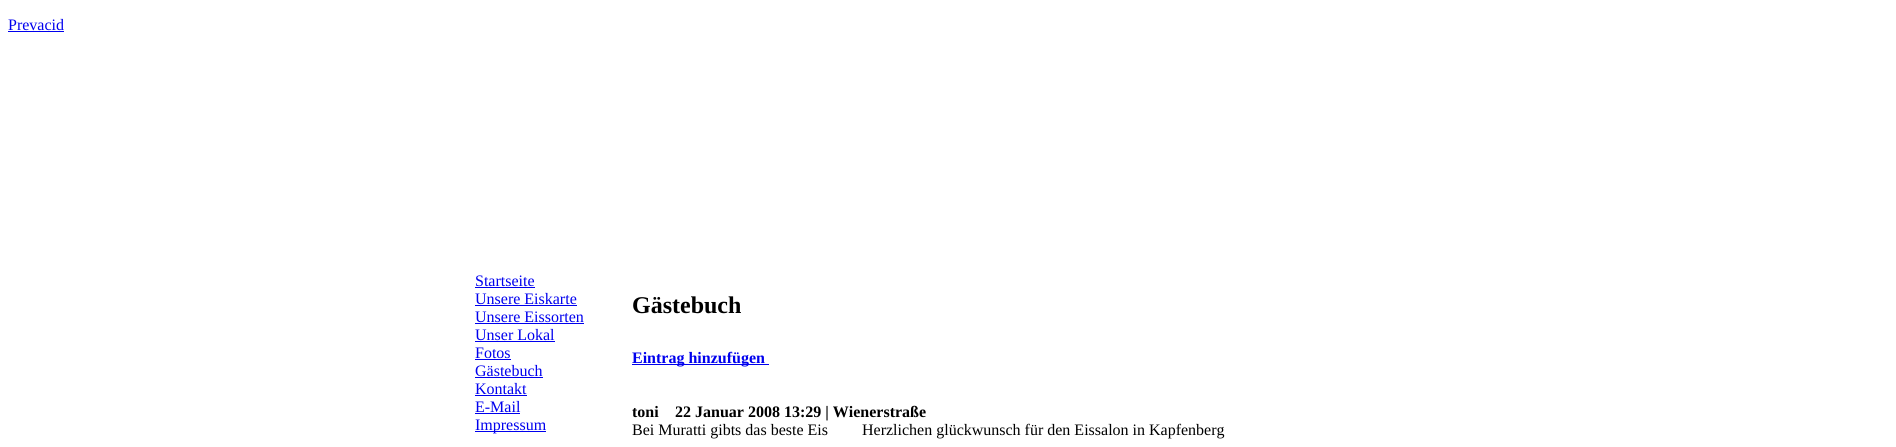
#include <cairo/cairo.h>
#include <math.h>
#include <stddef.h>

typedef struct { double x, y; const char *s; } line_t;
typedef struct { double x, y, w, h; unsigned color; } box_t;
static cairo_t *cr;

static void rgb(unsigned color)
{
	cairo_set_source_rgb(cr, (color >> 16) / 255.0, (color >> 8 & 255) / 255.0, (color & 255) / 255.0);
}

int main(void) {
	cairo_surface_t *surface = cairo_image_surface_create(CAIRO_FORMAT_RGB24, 1896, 447);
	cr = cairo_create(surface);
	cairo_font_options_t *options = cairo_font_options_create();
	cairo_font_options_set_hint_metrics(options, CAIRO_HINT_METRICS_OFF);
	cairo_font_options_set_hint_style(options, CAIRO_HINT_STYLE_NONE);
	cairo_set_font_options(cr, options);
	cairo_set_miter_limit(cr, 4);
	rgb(0xffffff);
	cairo_paint(cr);
	{
		static const box_t items[] = {
			{8, 31, 56, 1, 0x0000ee},
			{475, 287, 60, 1, 0x0000ee},
			{475, 305, 102, 1, 0x0000ee},
			{475, 323, 109, 1, 0x0000ee},
			{475, 341, 80, 1, 0x0000ee},
			{475, 359, 36, 1, 0x0000ee},
			{475, 377, 68, 1, 0x0000ee},
			{475, 395, 52, 1, 0x0000ee},
			{475, 413, 45, 1, 0x0000ee},
			{475, 431, 71, 1, 0x0000ee},
			{632, 364, 137, 1, 0x0000ee},
		};
		for (size_t i = 0; i < sizeof items / sizeof *items; i++) {
			rgb(items[i].color);
			cairo_rectangle(cr, items[i].x, items[i].y, items[i].w, items[i].h);
			cairo_fill(cr);
		}
	}
	cairo_select_font_face(cr, "Liberation Serif", CAIRO_FONT_SLANT_NORMAL, CAIRO_FONT_WEIGHT_NORMAL);
	cairo_set_font_size(cr, 16);
	{
		static const line_t items[] = {
			{8, 30, "Prevacid"},
			{475, 286, "Startseite"},
			{475, 304, "Unsere Eiskarte"},
			{475, 322, "Unsere Eissorten"},
			{475, 340, "Unser Lokal"},
			{475, 358, "Fotos"},
			{475, 376, "Gästebuch"},
			{475, 394, "Kontakt"},
			{475, 412, "E-Mail"},
			{475, 430, "Impressum"},
		};
		for (size_t i = 0; i < sizeof items / sizeof *items; i++) {
			cairo_move_to(cr, items[i].x, items[i].y);
			cairo_show_text(cr, items[i].s);
		}
	}
	cairo_select_font_face(cr, "Liberation Serif", CAIRO_FONT_SLANT_NORMAL, CAIRO_FONT_WEIGHT_BOLD);
	cairo_set_font_size(cr, 24);
	rgb(0x000000);
	cairo_move_to(cr, 632, 313);
	cairo_show_text(cr, "Gästebuch");
	cairo_set_font_size(cr, 16);
	rgb(0x0000ee);
	cairo_move_to(cr, 632, 363);
	cairo_show_text(cr, "Eintrag hinzufügen");
	rgb(0x000000);
	cairo_move_to(cr, 632, 417);
	cairo_show_text(cr, "toni");
	cairo_move_to(cr, 675, 417);
	cairo_show_text(cr, "22 Januar 2008 13:29 | Wienerstraße");
	cairo_select_font_face(cr, "Liberation Serif", CAIRO_FONT_SLANT_NORMAL, CAIRO_FONT_WEIGHT_NORMAL);
	cairo_move_to(cr, 632, 435);
	cairo_show_text(cr, "Bei Muratti gibts das beste Eis");
	cairo_move_to(cr, 862, 435);
	cairo_show_text(cr, "Herzlichen glückwunsch für den Eissalon in Kapfenberg");
	cairo_surface_write_to_png(surface, "page.png");
	cairo_font_options_destroy(options);
	cairo_destroy(cr);
	cairo_surface_destroy(surface);
	return 0;
}
